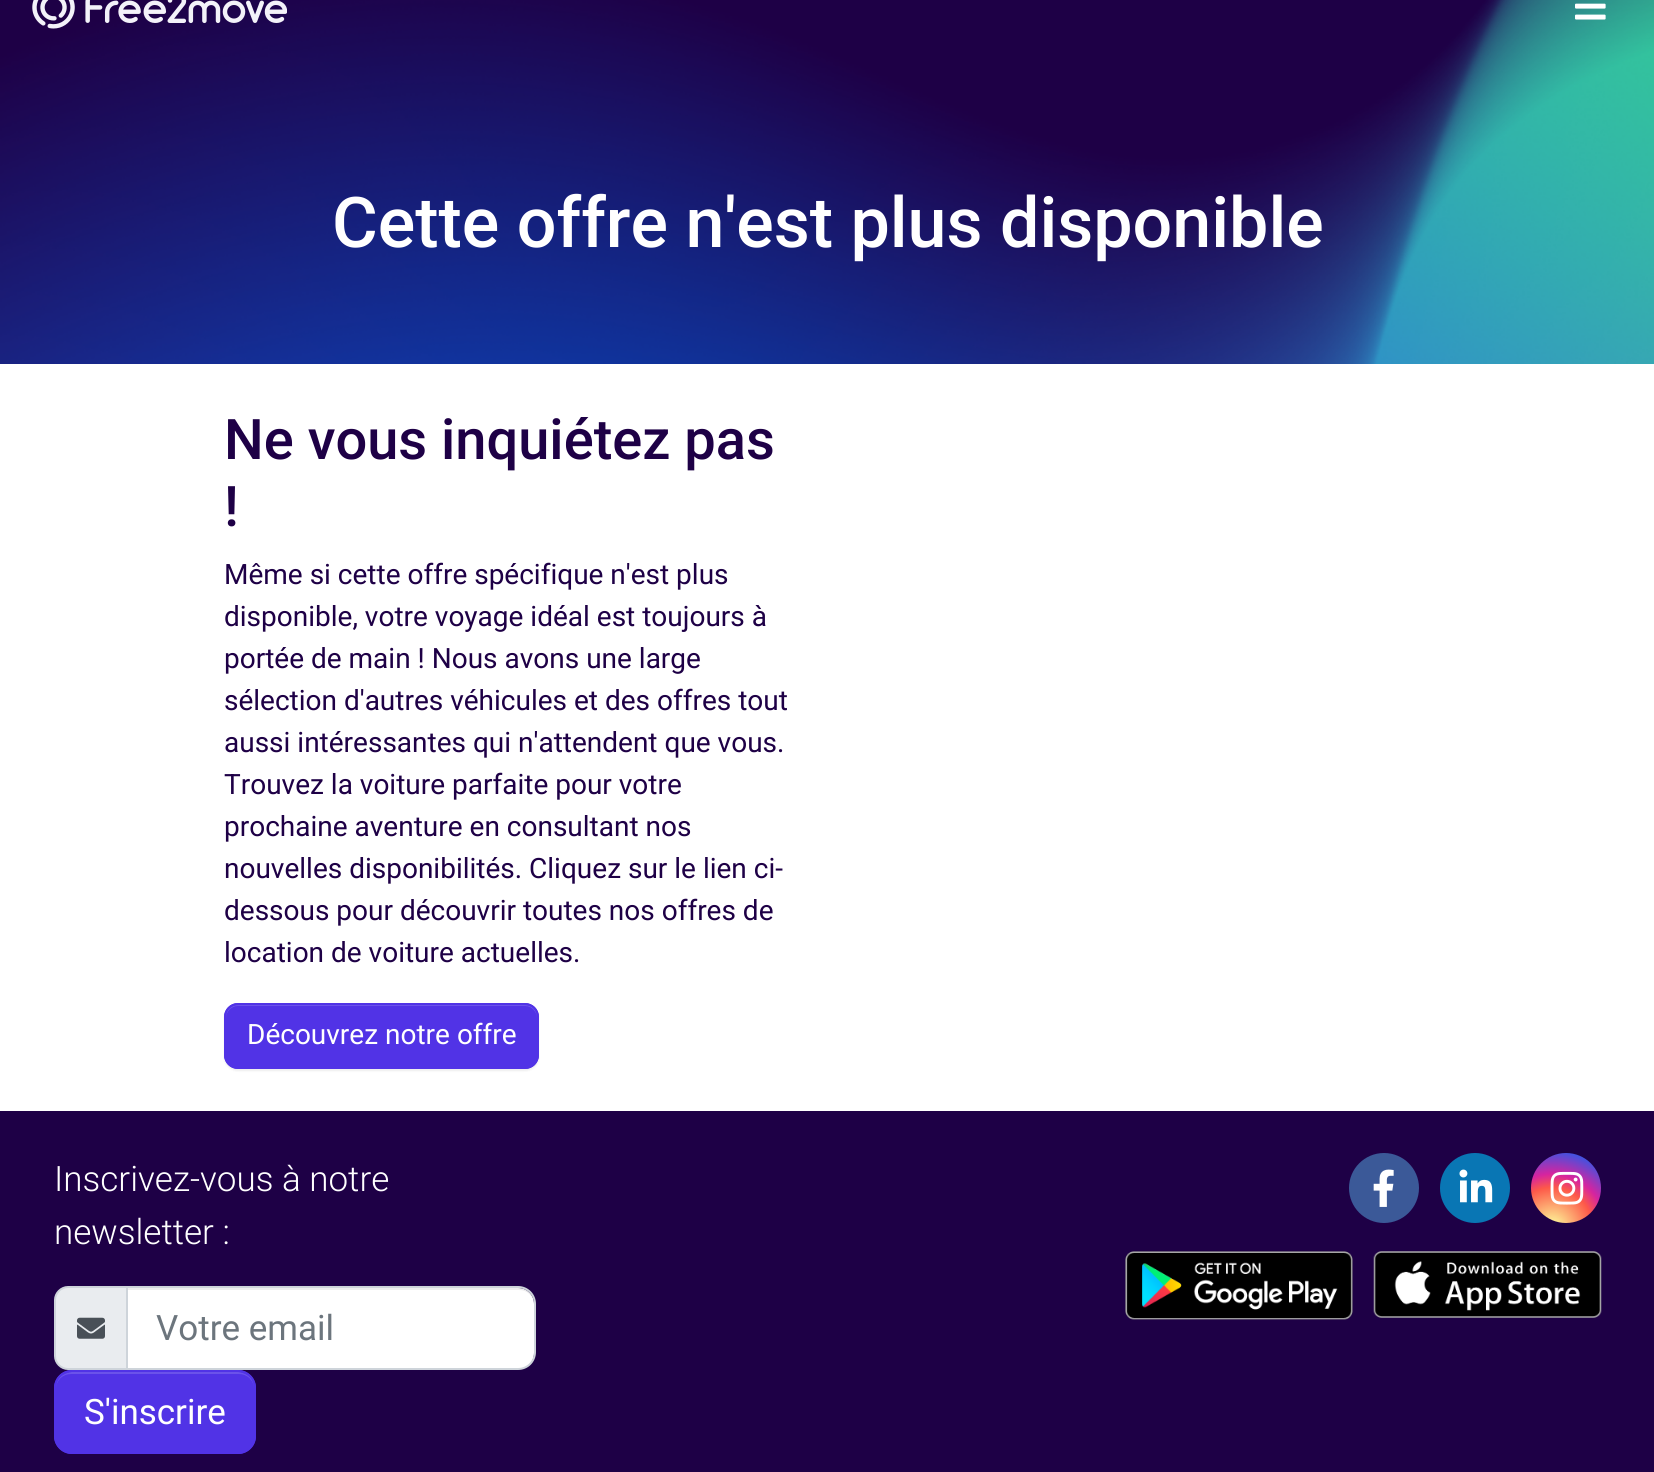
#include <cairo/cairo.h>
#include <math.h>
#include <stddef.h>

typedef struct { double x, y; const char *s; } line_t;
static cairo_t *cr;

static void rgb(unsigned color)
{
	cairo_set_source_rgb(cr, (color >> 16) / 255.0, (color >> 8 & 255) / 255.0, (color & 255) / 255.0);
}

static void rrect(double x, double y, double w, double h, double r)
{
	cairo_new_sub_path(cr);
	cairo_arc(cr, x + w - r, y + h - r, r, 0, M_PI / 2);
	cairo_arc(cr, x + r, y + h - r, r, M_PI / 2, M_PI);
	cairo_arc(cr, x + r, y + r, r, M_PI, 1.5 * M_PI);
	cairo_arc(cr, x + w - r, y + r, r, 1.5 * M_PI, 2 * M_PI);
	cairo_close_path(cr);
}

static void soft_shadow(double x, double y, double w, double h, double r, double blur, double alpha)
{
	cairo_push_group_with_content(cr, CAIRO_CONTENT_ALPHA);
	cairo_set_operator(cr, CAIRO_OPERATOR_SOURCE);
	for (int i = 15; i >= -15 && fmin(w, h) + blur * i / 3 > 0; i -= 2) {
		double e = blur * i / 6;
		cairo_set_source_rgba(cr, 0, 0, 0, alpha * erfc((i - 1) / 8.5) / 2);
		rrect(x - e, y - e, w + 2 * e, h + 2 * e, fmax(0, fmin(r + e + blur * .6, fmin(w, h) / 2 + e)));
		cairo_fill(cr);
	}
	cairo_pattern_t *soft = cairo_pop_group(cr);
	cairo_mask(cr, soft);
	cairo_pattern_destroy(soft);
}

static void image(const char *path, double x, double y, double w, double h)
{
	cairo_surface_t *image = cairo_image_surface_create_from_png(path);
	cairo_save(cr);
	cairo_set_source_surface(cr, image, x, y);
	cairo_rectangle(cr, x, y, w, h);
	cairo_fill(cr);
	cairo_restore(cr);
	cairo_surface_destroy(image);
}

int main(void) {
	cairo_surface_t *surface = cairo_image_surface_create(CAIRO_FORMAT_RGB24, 1654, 1472);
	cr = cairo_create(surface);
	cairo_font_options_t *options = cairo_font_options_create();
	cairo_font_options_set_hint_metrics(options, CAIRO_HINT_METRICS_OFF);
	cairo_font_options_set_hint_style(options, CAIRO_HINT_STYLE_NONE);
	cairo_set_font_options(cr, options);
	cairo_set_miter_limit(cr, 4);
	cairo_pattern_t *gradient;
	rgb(0xffffff);
	cairo_paint(cr);
	rgb(0x1e0046);
	cairo_rectangle(cr, 0, 0, 1654, 364);
	cairo_fill(cr);
	image("img/1.png", 0, 0, 1654, 364);
	image("img/2.png", 32, 0, 255, 29);
	image("img/3.png", 1575, 3, 31, 17);
	rgb(0x000000);
	soft_shadow(224, 1005, 315, 66, 14, 1, 0.07);
	rgb(0x5133e6);
	rrect(224, 1003, 315, 66, 14);
	cairo_fill(cr);
	rgb(0x6b52ea);
	cairo_new_path(cr);
	cairo_move_to(cr, 238, 1006);
	cairo_line_to(cr, 525, 1006);
	cairo_curve_to(cr, 532, 1006, 537, 1012, 537, 1018);
	cairo_line_to(cr, 537, 1017);
	cairo_curve_to(cr, 537, 1010, 532, 1005, 525, 1005);
	cairo_line_to(cr, 238, 1005);
	cairo_curve_to(cr, 231, 1005, 226, 1010, 226, 1017);
	cairo_line_to(cr, 226, 1018);
	cairo_curve_to(cr, 226, 1012, 231, 1006, 238, 1006);
	cairo_close_path(cr);
	cairo_fill(cr);
	rrect(225, 1004, 313, 64, 13);
	rgb(0x5133e6);
	cairo_stroke(cr);
	rgb(0x1e0046);
	cairo_rectangle(cr, 0, 1111, 1654, 361);
	cairo_fill(cr);
	rgb(0xe9ecef);
	cairo_new_path(cr);
	cairo_move_to(cr, 68, 1287);
	cairo_line_to(cr, 127, 1287);
	cairo_line_to(cr, 127, 1369);
	cairo_line_to(cr, 68, 1369);
	cairo_curve_to(cr, 61, 1369, 55, 1363, 55, 1356);
	cairo_line_to(cr, 55, 1300);
	cairo_curve_to(cr, 55, 1293, 61, 1287, 68, 1287);
	cairo_close_path(cr);
	cairo_fill_preserve(cr);
	rgb(0xced4da);
	cairo_stroke(cr);
	image("img/4.png", 77, 1317, 28, 22);
	rgb(0xffffff);
	cairo_new_path(cr);
	cairo_move_to(cr, 128, 1288);
	cairo_line_to(cr, 518, 1288);
	cairo_curve_to(cr, 527, 1288, 534, 1295, 534, 1304);
	cairo_line_to(cr, 534, 1353);
	cairo_curve_to(cr, 534, 1362, 527, 1369, 518, 1369);
	cairo_line_to(cr, 128, 1369);
	cairo_close_path(cr);
	cairo_fill(cr);
	cairo_set_source_rgba(cr, 0, 0, 0, 0.07);
	cairo_new_path(cr);
	cairo_move_to(cr, 128, 1290);
	cairo_line_to(cr, 519, 1290);
	cairo_curve_to(cr, 527, 1290, 534, 1296, 534, 1305);
	cairo_line_to(cr, 534, 1304);
	cairo_curve_to(cr, 534, 1295, 527, 1288, 518, 1288);
	cairo_line_to(cr, 128, 1288);
	cairo_close_path(cr);
	cairo_fill(cr);
	cairo_new_path(cr);
	cairo_move_to(cr, 127, 1287);
	cairo_line_to(cr, 518, 1287);
	cairo_curve_to(cr, 527.5, 1287, 535, 1294.5, 535, 1304);
	cairo_line_to(cr, 535, 1352);
	cairo_curve_to(cr, 535, 1361.5, 527.5, 1369, 518, 1369);
	cairo_line_to(cr, 127, 1369);
	cairo_close_path(cr);
	rgb(0xced4da);
	cairo_stroke(cr);
	rgb(0x5133e6);
	rrect(54, 1370, 202, 84, 18);
	cairo_fill(cr);
	rgb(0x6b52ea);
	cairo_new_path(cr);
	cairo_move_to(cr, 71, 1374);
	cairo_line_to(cr, 239, 1374);
	cairo_curve_to(cr, 247, 1374, 254, 1380, 254, 1389);
	cairo_curve_to(cr, 254, 1366, 225, 1372, 210, 1372);
	cairo_line_to(cr, 100, 1372);
	cairo_curve_to(cr, 85, 1372, 56, 1366, 56, 1389);
	cairo_curve_to(cr, 56, 1380, 63, 1374, 71, 1374);
	cairo_close_path(cr);
	cairo_fill(cr);
	rrect(55, 1371, 200, 82, 17);
	rgb(0x5133e6);
	cairo_stroke(cr);
	rgb(0x3b5998);
	cairo_arc(cr, 1384, 1188, 35, 0, 2 * M_PI);
	cairo_fill(cr);
	image("img/5.png", 1373, 1169, 21, 38);
	rgb(0x0976b4);
	cairo_arc(cr, 1475, 1188, 35, 0, 2 * M_PI);
	cairo_fill(cr);
	image("img/6.png", 1459, 1169, 34, 34);
	gradient = cairo_pattern_create_radial(1552, 1228, 0, 1552, 1228, 90);
	cairo_pattern_add_color_stop_rgba(gradient, 0, 0.992, 0.957, 0.592, 1);
	cairo_pattern_add_color_stop_rgba(gradient, 0.05, 0.992, 0.957, 0.592, 1);
	cairo_pattern_add_color_stop_rgba(gradient, 0.45, 0.992, 0.349, 0.286, 1);
	cairo_pattern_add_color_stop_rgba(gradient, 0.6, 0.839, 0.141, 0.624, 1);
	cairo_pattern_add_color_stop_rgba(gradient, 0.9, 0.157, 0.353, 0.922, 1);
	cairo_set_source(cr, gradient);
	cairo_pattern_destroy(gradient);
	cairo_arc(cr, 1566, 1188, 35, 0, 2 * M_PI);
	cairo_fill(cr);
	image("img/7.png", 1550, 1171, 34, 34);
	image("img/8.png", 1125, 1251, 228, 69);
	image("img/9.png", 1373, 1251, 229, 67);
	cairo_select_font_face(cr, "Roboto Medium", CAIRO_FONT_SLANT_NORMAL, CAIRO_FONT_WEIGHT_NORMAL);
	cairo_set_font_size(cr, 70);
	rgb(0xffffff);
	cairo_move_to(cr, 332, 247);
	cairo_show_text(cr, "Cette offre n'est plus disponible");
	cairo_set_font_size(cr, 56);
	rgb(0x1e0046);
	cairo_move_to(cr, 224, 459);
	cairo_show_text(cr, "Ne vous inquiétez pas");
	cairo_move_to(cr, 224, 526);
	cairo_show_text(cr, "!");
	cairo_select_font_face(cr, "Roboto", CAIRO_FONT_SLANT_NORMAL, CAIRO_FONT_WEIGHT_NORMAL);
	cairo_set_font_size(cr, 28);
	{
		static const line_t items[] = {
			{224, 584, "Même si cette offre spécifique n'est plus"},
			{224, 626, "disponible, votre voyage idéal est toujours à"},
			{224, 668, "portée de main ! Nous avons une large"},
			{224, 710, "sélection d'autres véhicules et des offres tout"},
			{224, 752, "aussi intéressantes qui n'attendent que vous."},
			{224, 794, "Trouvez la voiture parfaite pour votre"},
			{224, 836, "prochaine aventure en consultant nos"},
			{224, 878, "nouvelles disponibilités. Cliquez sur le lien ci-"},
			{224, 920, "dessous pour découvrir toutes nos offres de"},
			{224, 962, "location de voiture actuelles."},
		};
		for (size_t i = 0; i < sizeof items / sizeof *items; i++) {
			cairo_move_to(cr, items[i].x, items[i].y);
			cairo_show_text(cr, items[i].s);
		}
	}
	rgb(0xffffff);
	cairo_move_to(cr, 247, 1044);
	cairo_show_text(cr, "Découvrez notre offre");
	cairo_select_font_face(cr, "Roboto Light", CAIRO_FONT_SLANT_NORMAL, CAIRO_FONT_WEIGHT_NORMAL);
	cairo_set_font_size(cr, 35);
	cairo_move_to(cr, 54, 1191);
	cairo_show_text(cr, "Inscrivez-vous à notre");
	cairo_move_to(cr, 54, 1244);
	cairo_show_text(cr, "newsletter :");
	cairo_select_font_face(cr, "Roboto", CAIRO_FONT_SLANT_NORMAL, CAIRO_FONT_WEIGHT_NORMAL);
	rgb(0x6c757d);
	cairo_move_to(cr, 156, 1340);
	cairo_show_text(cr, "Votre email");
	rgb(0xffffff);
	cairo_move_to(cr, 84, 1424);
	cairo_show_text(cr, "S'inscrire");
	cairo_surface_write_to_png(surface, "page.png");
	cairo_font_options_destroy(options);
	cairo_destroy(cr);
	cairo_surface_destroy(surface);
	return 0;
}
